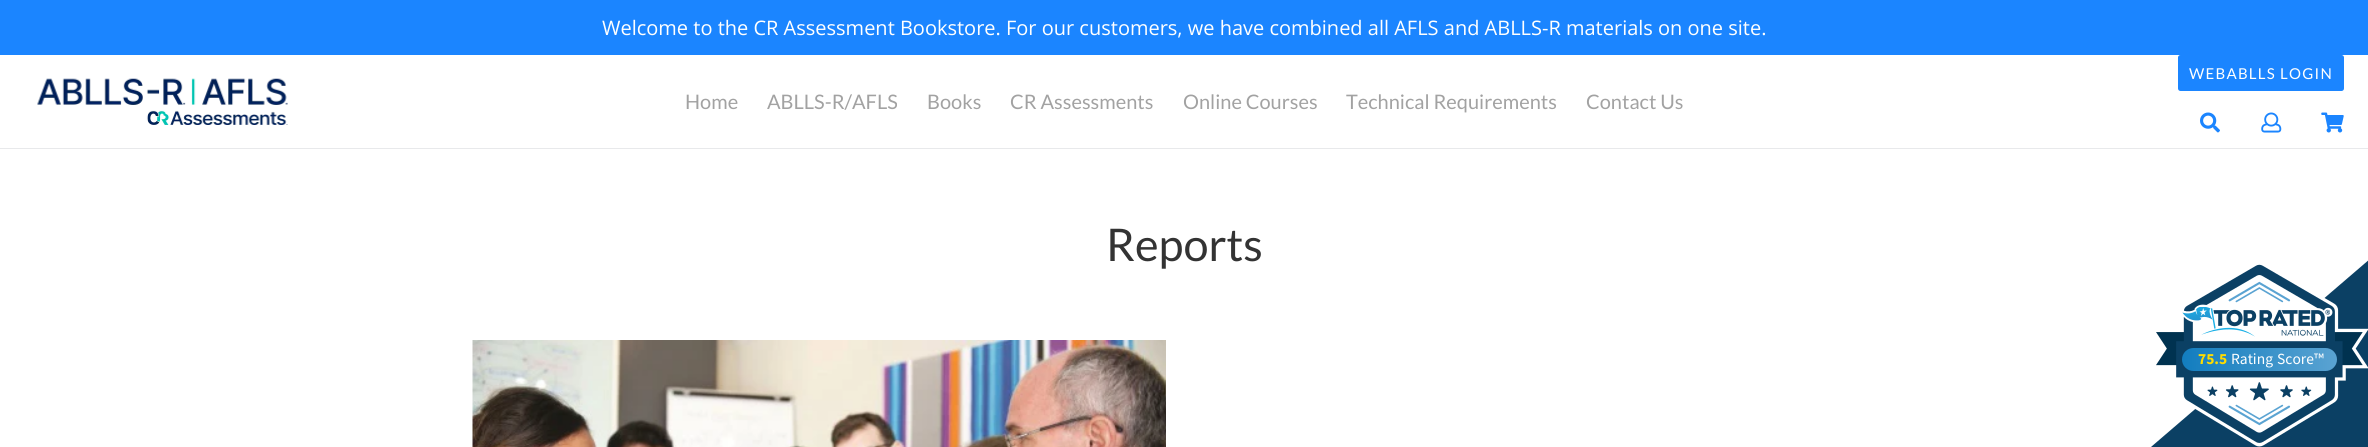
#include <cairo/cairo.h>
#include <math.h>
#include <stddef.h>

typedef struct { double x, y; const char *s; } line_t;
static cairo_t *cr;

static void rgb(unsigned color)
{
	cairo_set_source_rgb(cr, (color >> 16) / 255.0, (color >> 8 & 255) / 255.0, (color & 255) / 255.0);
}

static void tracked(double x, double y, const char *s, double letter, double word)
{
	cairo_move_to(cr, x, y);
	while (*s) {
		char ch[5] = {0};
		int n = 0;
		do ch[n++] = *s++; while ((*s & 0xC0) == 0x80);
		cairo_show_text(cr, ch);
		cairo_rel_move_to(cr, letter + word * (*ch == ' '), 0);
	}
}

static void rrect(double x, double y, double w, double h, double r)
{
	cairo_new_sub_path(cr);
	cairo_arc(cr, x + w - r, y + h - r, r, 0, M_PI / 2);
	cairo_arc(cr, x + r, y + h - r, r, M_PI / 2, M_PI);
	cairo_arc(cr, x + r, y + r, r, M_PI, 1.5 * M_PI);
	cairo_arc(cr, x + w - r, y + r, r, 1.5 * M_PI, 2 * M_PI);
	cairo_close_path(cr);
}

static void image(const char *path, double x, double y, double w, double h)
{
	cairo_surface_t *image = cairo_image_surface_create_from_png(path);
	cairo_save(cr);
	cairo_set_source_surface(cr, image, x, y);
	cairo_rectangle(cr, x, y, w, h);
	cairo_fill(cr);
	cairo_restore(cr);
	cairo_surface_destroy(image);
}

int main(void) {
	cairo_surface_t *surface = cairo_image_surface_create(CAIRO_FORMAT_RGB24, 2368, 447);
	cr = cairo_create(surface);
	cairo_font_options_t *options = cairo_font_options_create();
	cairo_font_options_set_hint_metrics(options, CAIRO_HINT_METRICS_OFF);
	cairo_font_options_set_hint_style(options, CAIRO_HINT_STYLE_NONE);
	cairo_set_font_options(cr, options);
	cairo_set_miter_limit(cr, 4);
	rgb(0xffffff);
	cairo_paint(cr);
	rgb(0x1b85ff);
	cairo_rectangle(cr, 0, 0, 2368, 55);
	cairo_fill(cr);
	rgb(0xe8e9eb);
	cairo_rectangle(cr, 0, 148, 2368, 1);
	cairo_fill(cr);
	rgb(0x1b85ff);
	rrect(2178, 55, 166, 36, 2.5);
	cairo_fill(cr);
	image("img/1.png", 2200, 112, 20, 21);
	image("img/2.png", 2261, 112, 21, 21);
	image("img/3.png", 2321, 112, 23, 21);
	image("img/4.png", 37, 78, 251, 47);
	image("img/5.png", 472, 340, 694, 107);
	image("img/6.png", 2151, 260, 217, 187);
	cairo_select_font_face(cr, "Open Sans", CAIRO_FONT_SLANT_NORMAL, CAIRO_FONT_WEIGHT_NORMAL);
	cairo_set_font_size(cr, 20);
	rgb(0xffffff);
	cairo_move_to(cr, 602, 35);
	cairo_show_text(cr, "Welcome to the CR Assessment Bookstore. For our customers, we have combined all AFLS and ABLLS-R materials on one site.");
	cairo_select_font_face(cr, "Lato", CAIRO_FONT_SLANT_NORMAL, CAIRO_FONT_WEIGHT_NORMAL);
	cairo_set_font_size(cr, 15);
	tracked(2189, 79, "WEBABLLS LOGIN", 1.25, 0);
	cairo_set_font_size(cr, 20);
	rgb(0xa2a2a2);
	{
		static const line_t items[] = {
			{685, 109, "Home"},
			{767, 109, "ABLLS-R/AFLS"},
			{927, 109, "Books"},
			{1010, 109, "CR Assessments"},
			{1183, 109, "Online Courses"},
			{1346, 109, "Technical Requirements"},
			{1586, 109, "Contact Us"},
		};
		for (size_t i = 0; i < sizeof items / sizeof *items; i++) {
			cairo_move_to(cr, items[i].x, items[i].y);
			cairo_show_text(cr, items[i].s);
		}
	}
	cairo_set_font_size(cr, 45);
	rgb(0x333333);
	cairo_move_to(cr, 1106, 261);
	cairo_show_text(cr, "Reports");
	cairo_select_font_face(cr, "Source Sans Pro", CAIRO_FONT_SLANT_NORMAL, CAIRO_FONT_WEIGHT_BOLD);
	cairo_set_font_size(cr, 15.5);
	rgb(0xffdd00);
	cairo_move_to(cr, 2198, 364);
	cairo_show_text(cr, "75.5");
	cairo_select_font_face(cr, "Source Sans Pro", CAIRO_FONT_SLANT_NORMAL, CAIRO_FONT_WEIGHT_NORMAL);
	rgb(0xffffff);
	tracked(2231, 364, "Rating Score™", 0, 1);
	cairo_surface_write_to_png(surface, "page.png");
	cairo_font_options_destroy(options);
	cairo_destroy(cr);
	cairo_surface_destroy(surface);
	return 0;
}
